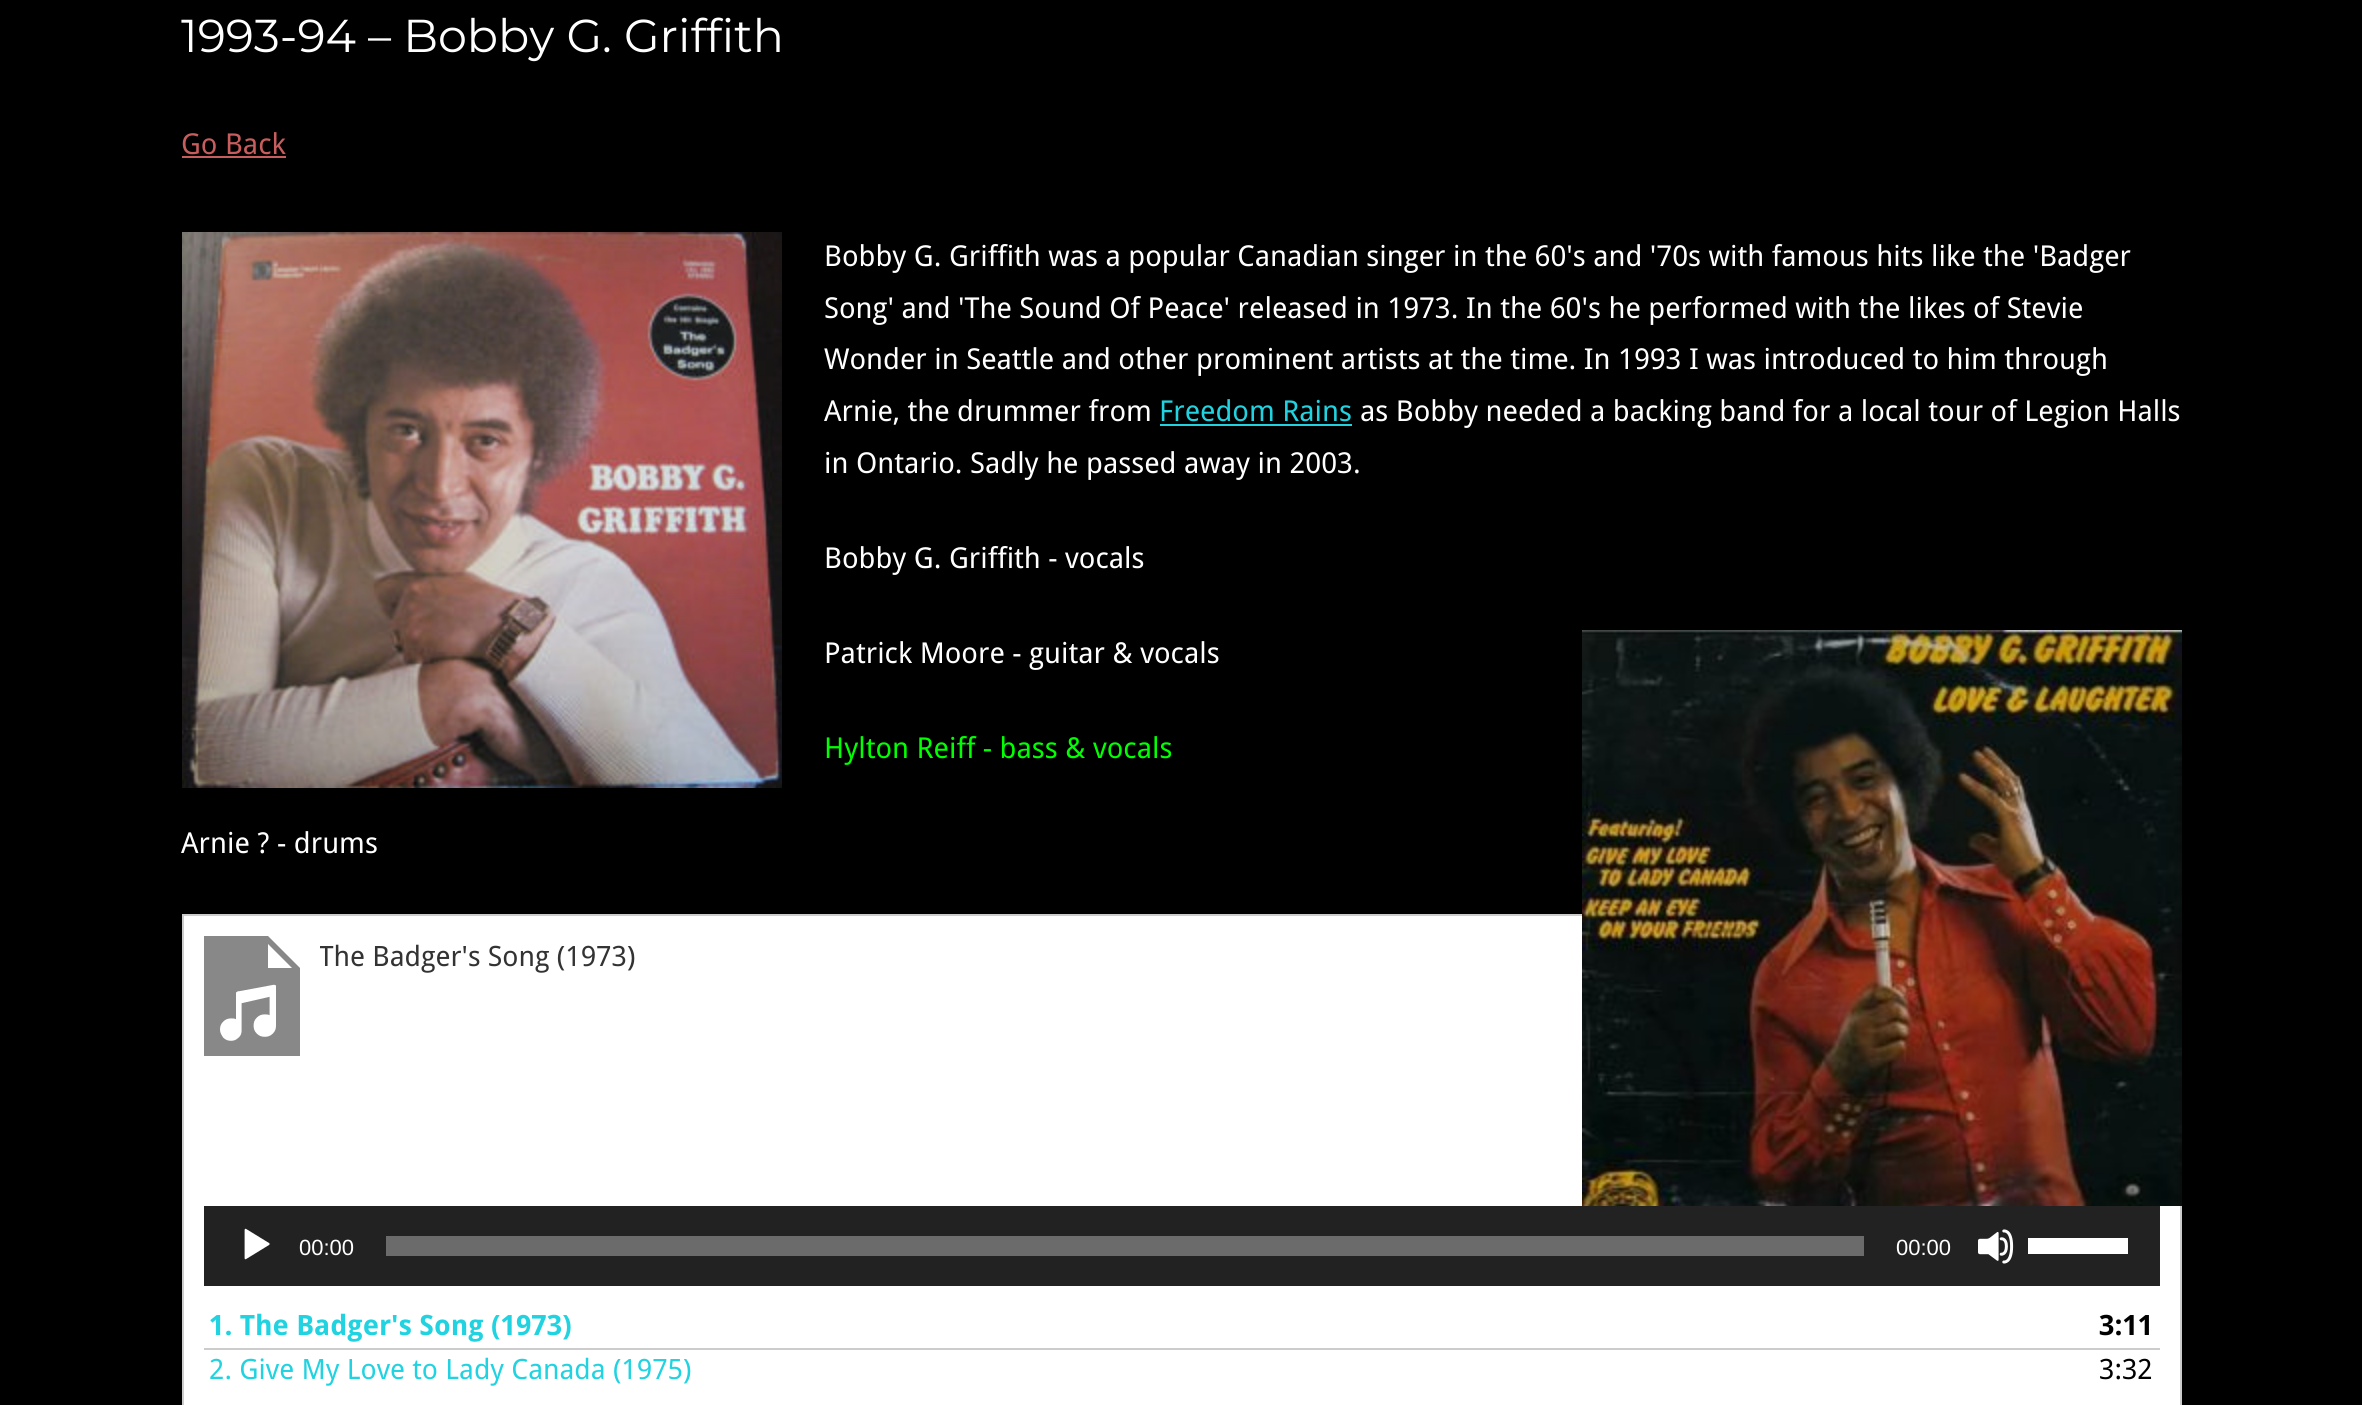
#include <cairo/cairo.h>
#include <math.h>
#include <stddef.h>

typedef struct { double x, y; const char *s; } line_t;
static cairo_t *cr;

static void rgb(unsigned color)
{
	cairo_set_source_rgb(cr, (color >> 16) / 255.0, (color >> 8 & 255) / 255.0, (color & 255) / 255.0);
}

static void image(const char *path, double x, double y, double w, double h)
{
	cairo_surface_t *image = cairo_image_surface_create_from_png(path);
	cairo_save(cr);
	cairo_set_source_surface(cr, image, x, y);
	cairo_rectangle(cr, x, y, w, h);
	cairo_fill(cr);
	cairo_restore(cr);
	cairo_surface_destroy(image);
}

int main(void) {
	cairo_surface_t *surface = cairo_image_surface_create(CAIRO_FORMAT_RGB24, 2362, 1405);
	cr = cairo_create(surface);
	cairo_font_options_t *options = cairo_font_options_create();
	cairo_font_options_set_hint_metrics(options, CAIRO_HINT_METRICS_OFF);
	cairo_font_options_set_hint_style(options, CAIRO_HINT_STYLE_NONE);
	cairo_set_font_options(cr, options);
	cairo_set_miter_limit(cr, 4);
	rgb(0x000000);
	cairo_paint(cr);
	rgb(0xc75d5d);
	cairo_rectangle(cr, 182, 156, 104, 2);
	cairo_fill(cr);
	image("img/1.png", 182, 232, 600, 556);
	rgb(0x21d3e0);
	cairo_rectangle(cr, 1160, 424, 192, 2);
	cairo_fill(cr);
	rgb(0xffffff);
	cairo_rectangle(cr, 183, 915, 1998, 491);
	cairo_fill_preserve(cr);
	rgb(0xcccccc);
	cairo_stroke(cr);
	image("img/2.png", 1582, 630, 600, 576);
	image("img/3.png", 204, 936, 96, 120);
	rgb(0x222222);
	cairo_rectangle(cr, 204, 1206, 1956, 80);
	cairo_fill(cr);
	image("img/4.png", 244, 1228, 26, 32);
	rgb(0x6b6b6b);
	cairo_rectangle(cr, 386, 1236, 1478, 20);
	cairo_fill(cr);
	image("img/5.png", 1978, 1229, 36, 35);
	rgb(0xffffff);
	cairo_rectangle(cr, 2028, 1238, 100, 16);
	cairo_fill(cr);
	rgb(0xcccccc);
	cairo_rectangle(cr, 204, 1348, 1956, 2);
	cairo_fill(cr);
	cairo_select_font_face(cr, "Montserrat Thin", CAIRO_FONT_SLANT_NORMAL, CAIRO_FONT_WEIGHT_NORMAL);
	cairo_set_font_size(cr, 46.1);
	rgb(0xffffff);
	cairo_move_to(cr, 181, 52);
	cairo_show_text(cr, "1993-94 – Bobby G. Griffith");
	cairo_select_font_face(cr, "Droid Sans", CAIRO_FONT_SLANT_NORMAL, CAIRO_FONT_WEIGHT_NORMAL);
	cairo_set_font_size(cr, 28.8);
	rgb(0xc75d5d);
	cairo_move_to(cr, 181, 154);
	cairo_show_text(cr, "Go Back");
	rgb(0xffffff);
	{
		static const line_t items[] = {
			{824, 266, "Bobby G. Griffith was a popular Canadian singer in the 60's and '70s with famous hits like the 'Badger"},
			{824, 318, "Song' and 'The Sound Of Peace' released in 1973. In the 60's he performed with the likes of Stevie"},
			{824, 369, "Wonder in Seattle and other prominent artists at the time. In 1993 I was introduced to him through"},
			{824, 421, "Arnie, the drummer from"},
		};
		for (size_t i = 0; i < sizeof items / sizeof *items; i++) {
			cairo_move_to(cr, items[i].x, items[i].y);
			cairo_show_text(cr, items[i].s);
		}
	}
	rgb(0x21d3e0);
	cairo_move_to(cr, 1159, 421);
	cairo_show_text(cr, "Freedom Rains");
	rgb(0xffffff);
	{
		static const line_t items[] = {
			{1360, 421, "as Bobby needed a backing band for a local tour of Legion Halls"},
			{824, 473, "in Ontario. Sadly he passed away in 2003."},
			{824, 568, "Bobby G. Griffith - vocals"},
			{824, 663, "Patrick Moore - guitar & vocals"},
		};
		for (size_t i = 0; i < sizeof items / sizeof *items; i++) {
			cairo_move_to(cr, items[i].x, items[i].y);
			cairo_show_text(cr, items[i].s);
		}
	}
	rgb(0x00ff00);
	cairo_move_to(cr, 824, 758);
	cairo_show_text(cr, "Hylton Reiff - bass & vocals");
	rgb(0xffffff);
	cairo_move_to(cr, 181, 853);
	cairo_show_text(cr, "Arnie ? - drums");
	cairo_save(cr);
	cairo_rectangle(cr, 320, 936, 1174, 42);
	cairo_clip(cr);
	cairo_set_font_size(cr, 28);
	rgb(0x333333);
	cairo_move_to(cr, 319, 966);
	cairo_show_text(cr, "The Badger's Song (1973)");
	cairo_restore(cr);
	cairo_select_font_face(cr, "Liberation Sans", CAIRO_FONT_SLANT_NORMAL, CAIRO_FONT_WEIGHT_NORMAL);
	cairo_set_font_size(cr, 22);
	cairo_move_to(cr, 299, 1255);
	cairo_show_text(cr, "00:00");
	cairo_move_to(cr, 1896, 1255);
	cairo_show_text(cr, "00:00");
	cairo_select_font_face(cr, "Droid Sans", CAIRO_FONT_SLANT_NORMAL, CAIRO_FONT_WEIGHT_BOLD);
	cairo_set_font_size(cr, 28);
	rgb(0x21d3e0);
	cairo_move_to(cr, 209, 1335);
	cairo_show_text(cr, "1. The Badger's Song (1973)");
	rgb(0x000000);
	cairo_move_to(cr, 2099, 1335);
	cairo_show_text(cr, "3:11");
	cairo_select_font_face(cr, "Droid Sans", CAIRO_FONT_SLANT_NORMAL, CAIRO_FONT_WEIGHT_NORMAL);
	rgb(0x21d3e0);
	cairo_move_to(cr, 209, 1379);
	cairo_show_text(cr, "2. Give My Love to Lady Canada (1975)");
	rgb(0x000000);
	cairo_move_to(cr, 2099, 1379);
	cairo_show_text(cr, "3:32");
	cairo_surface_write_to_png(surface, "page.png");
	cairo_font_options_destroy(options);
	cairo_destroy(cr);
	cairo_surface_destroy(surface);
	return 0;
}
